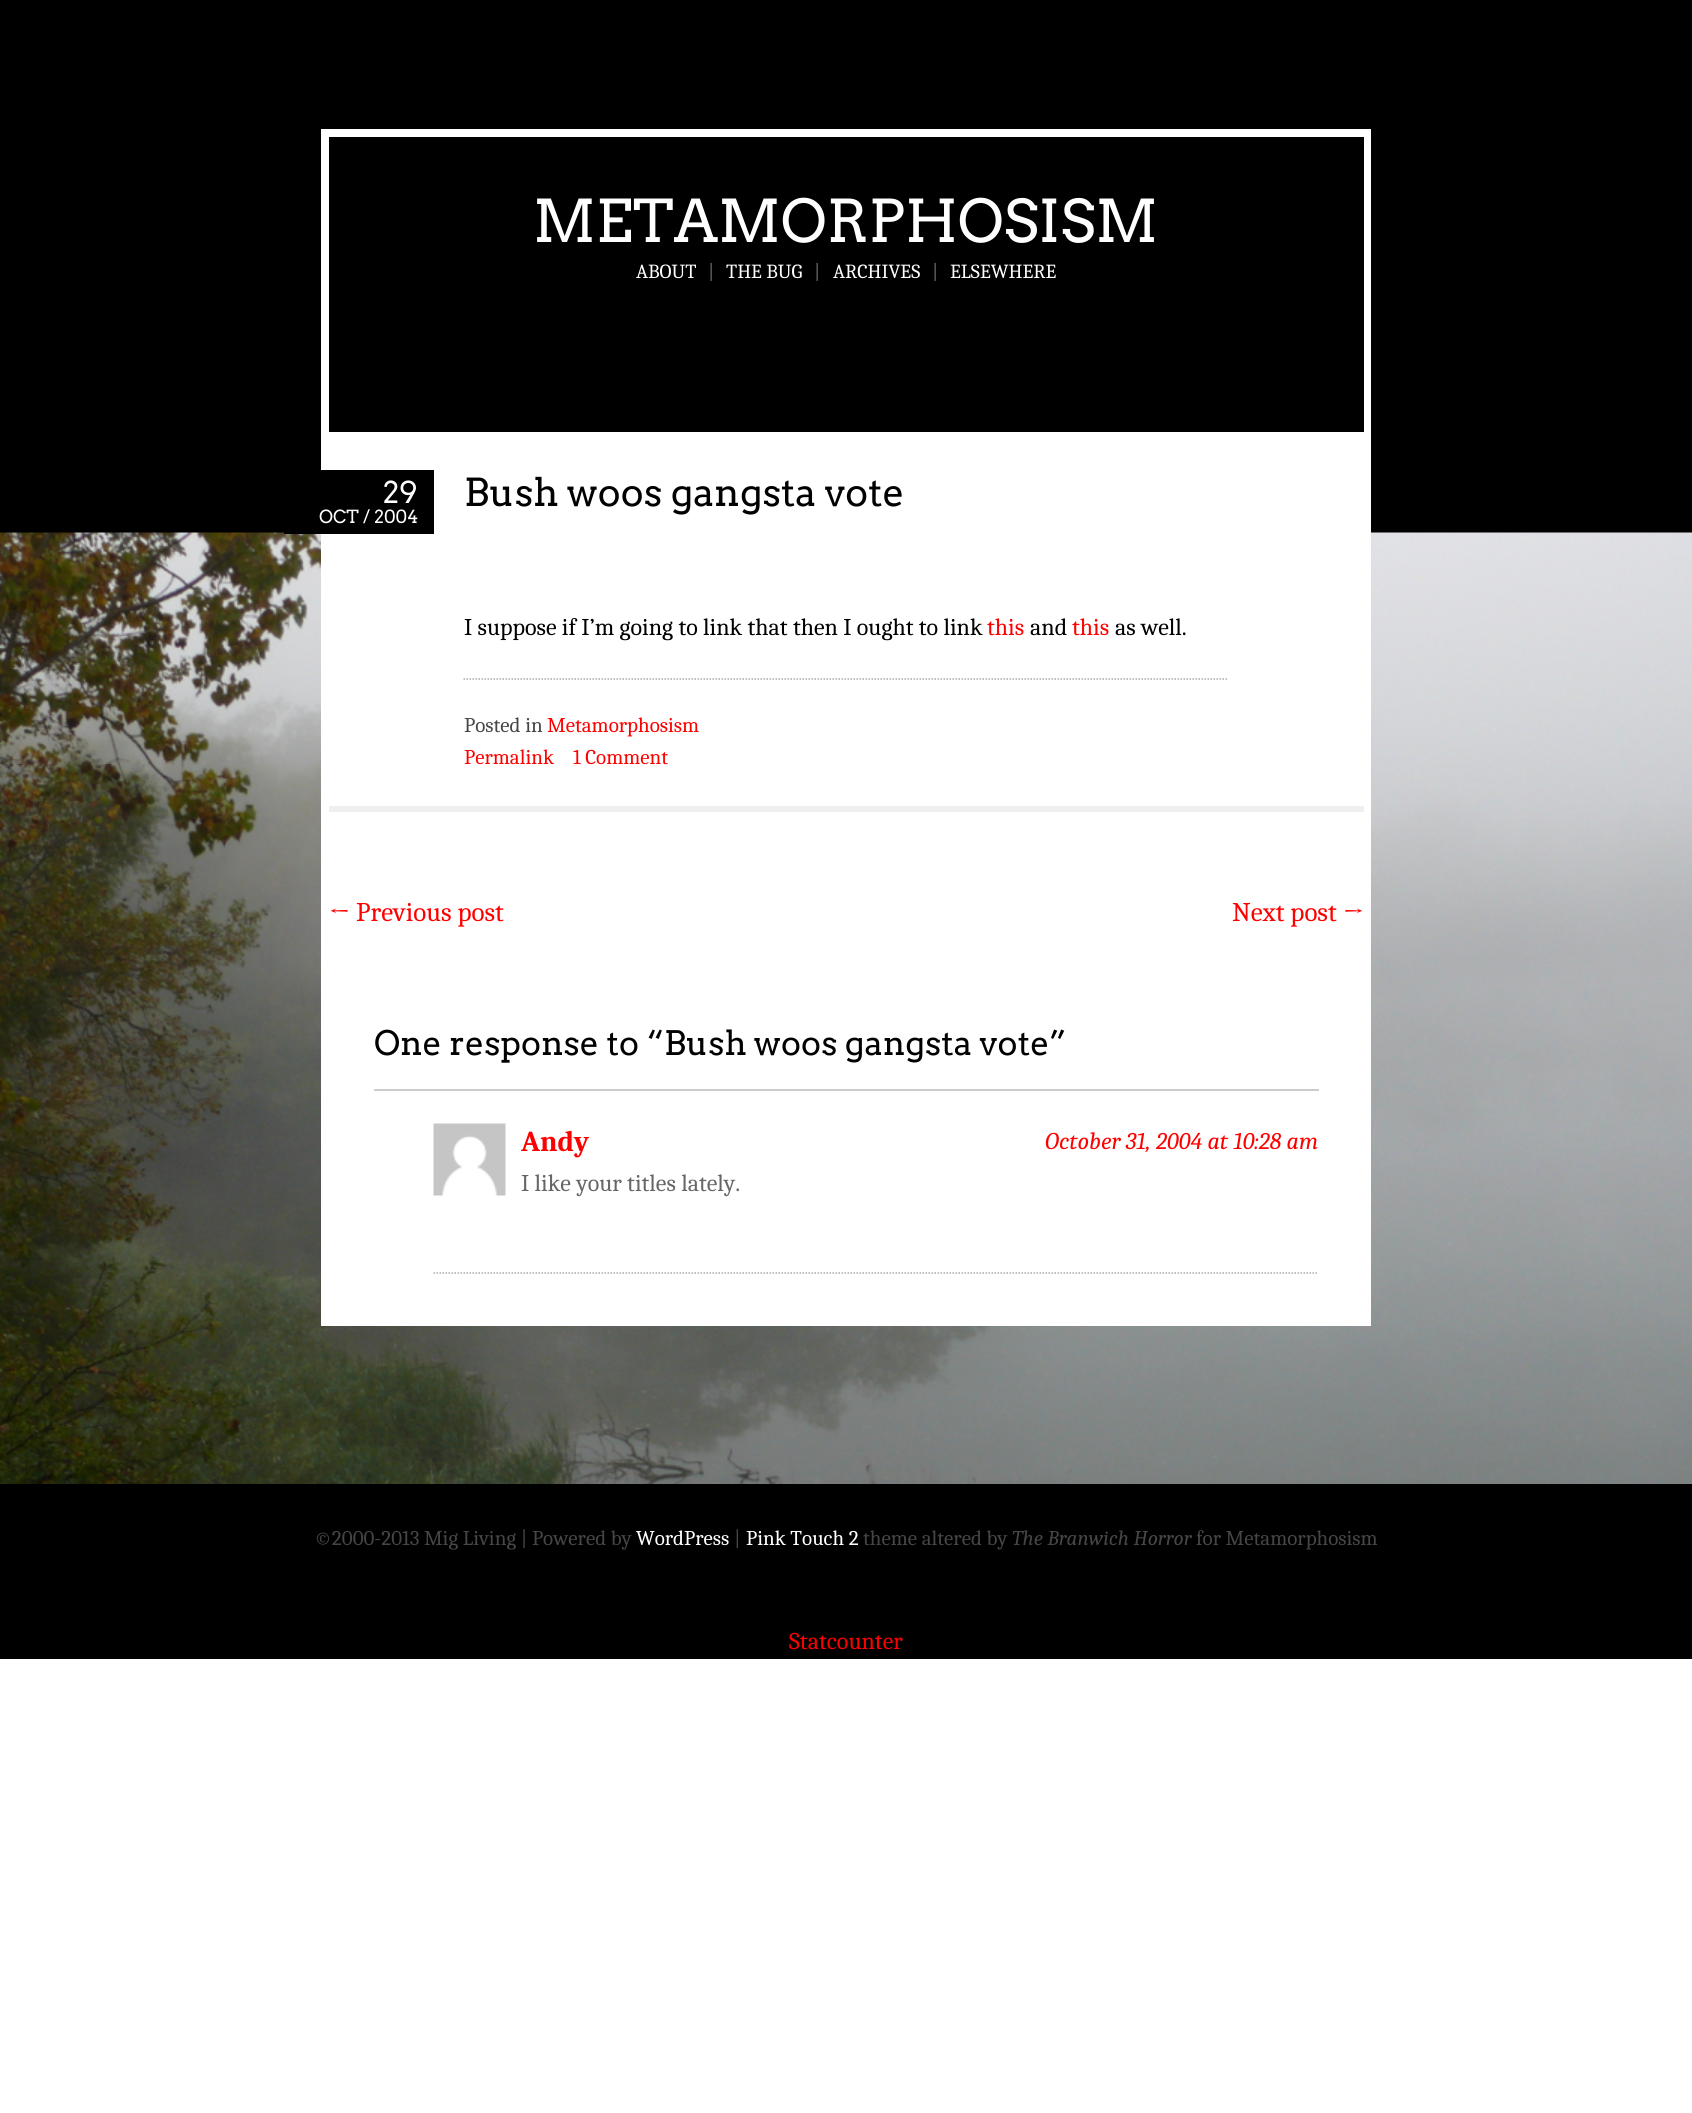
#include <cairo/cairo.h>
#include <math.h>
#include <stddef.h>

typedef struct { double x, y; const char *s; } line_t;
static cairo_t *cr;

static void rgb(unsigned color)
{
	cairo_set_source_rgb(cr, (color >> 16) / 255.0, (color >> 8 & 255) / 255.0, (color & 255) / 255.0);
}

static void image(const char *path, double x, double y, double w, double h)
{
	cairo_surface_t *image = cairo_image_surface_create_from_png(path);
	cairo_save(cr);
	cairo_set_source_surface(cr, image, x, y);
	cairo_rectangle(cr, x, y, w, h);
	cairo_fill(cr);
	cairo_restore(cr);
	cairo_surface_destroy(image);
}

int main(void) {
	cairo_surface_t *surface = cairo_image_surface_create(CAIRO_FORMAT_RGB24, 1692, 2113);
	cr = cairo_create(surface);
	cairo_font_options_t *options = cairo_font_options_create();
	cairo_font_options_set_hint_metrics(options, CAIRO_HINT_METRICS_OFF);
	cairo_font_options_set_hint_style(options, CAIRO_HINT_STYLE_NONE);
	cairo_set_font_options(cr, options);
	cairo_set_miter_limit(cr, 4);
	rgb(0xffffff);
	cairo_paint(cr);
	rgb(0x000000);
	cairo_rectangle(cr, 0, 0, 1692, 1659);
	cairo_fill(cr);
	image("img/1.png", 0, 532, 1692, 952);
	rgb(0xffffff);
	cairo_rectangle(cr, 321, 129, 1050, 1197);
	cairo_fill(cr);
	rgb(0x000000);
	cairo_rectangle(cr, 329, 137, 1035, 295);
	cairo_fill(cr);
	rgb(0xefefef);
	cairo_new_path(cr);
	cairo_move_to(cr, 329, 806);
	cairo_line_to(cr, 329, 812);
	cairo_line_to(cr, 1364, 812);
	cairo_line_to(cr, 1364, 438);
	cairo_line_to(cr, 1364, 806);
	cairo_close_path(cr);
	cairo_fill(cr);
	rgb(0x000000);
	cairo_rectangle(cr, 284, 470, 150, 64);
	cairo_fill(cr);
	cairo_new_path(cr);
	cairo_move_to(cr, 463.5, 679);
	cairo_line_to(cr, 1228.5, 679);
	rgb(0xa9a9a9);
	cairo_set_line_width(cr, 1.5);
	cairo_set_dash(cr, (double[]){1.5, 1.5}, 2, 0);
	cairo_stroke(cr);
	rgb(0xcccccc);
	cairo_rectangle(cr, 374, 1089, 945, 2);
	cairo_fill(cr);
	cairo_new_path(cr);
	cairo_move_to(cr, 433.5, 1273);
	cairo_line_to(cr, 1318.5, 1273);
	rgb(0xa9a9a9);
	cairo_stroke(cr);
	image("img/2.png", 433, 1123, 73, 73);
	cairo_select_font_face(cr, "Arvo", CAIRO_FONT_SLANT_NORMAL, CAIRO_FONT_WEIGHT_NORMAL);
	cairo_set_font_size(cr, 58.75);
	rgb(0xffffff);
	cairo_move_to(cr, 533, 242);
	cairo_show_text(cr, "METAMORPHOSISM");
	cairo_select_font_face(cr, "Caladea", CAIRO_FONT_SLANT_NORMAL, CAIRO_FONT_WEIGHT_NORMAL);
	cairo_set_font_size(cr, 20);
	cairo_move_to(cr, 636, 278);
	cairo_show_text(cr, "ABOUT");
	rgb(0x666666);
	cairo_move_to(cr, 708, 278);
	cairo_show_text(cr, "|");
	rgb(0xffffff);
	cairo_move_to(cr, 726, 278);
	cairo_show_text(cr, "THE BUG");
	rgb(0x666666);
	cairo_move_to(cr, 814, 278);
	cairo_show_text(cr, "|");
	rgb(0xffffff);
	cairo_move_to(cr, 833, 278);
	cairo_show_text(cr, "ARCHIVES");
	rgb(0x666666);
	cairo_move_to(cr, 932, 278);
	cairo_show_text(cr, "|");
	rgb(0xffffff);
	cairo_move_to(cr, 950, 278);
	cairo_show_text(cr, "ELSEWHERE");
	cairo_select_font_face(cr, "Arvo", CAIRO_FONT_SLANT_NORMAL, CAIRO_FONT_WEIGHT_NORMAL);
	cairo_set_font_size(cr, 30);
	cairo_move_to(cr, 383, 503);
	cairo_show_text(cr, "29");
	cairo_set_font_size(cr, 18);
	cairo_move_to(cr, 319, 523);
	cairo_show_text(cr, "OCT / 2004");
	cairo_set_font_size(cr, 38.4);
	rgb(0x000000);
	cairo_move_to(cr, 464, 506);
	cairo_show_text(cr, "Bush woos gangsta vote");
	cairo_select_font_face(cr, "Caladea", CAIRO_FONT_SLANT_NORMAL, CAIRO_FONT_WEIGHT_NORMAL);
	cairo_set_font_size(cr, 24);
	cairo_move_to(cr, 464, 635);
	cairo_show_text(cr, "I suppose if I’m going to link that then I ought to link");
	rgb(0xff0000);
	cairo_move_to(cr, 987, 635);
	cairo_show_text(cr, "this");
	rgb(0x000000);
	cairo_move_to(cr, 1030, 635);
	cairo_show_text(cr, "and");
	rgb(0xff0000);
	cairo_move_to(cr, 1072, 635);
	cairo_show_text(cr, "this");
	rgb(0x000000);
	cairo_move_to(cr, 1115, 635);
	cairo_show_text(cr, "as well.");
	cairo_set_font_size(cr, 21);
	rgb(0x474646);
	cairo_move_to(cr, 464, 732);
	cairo_show_text(cr, "Posted in");
	rgb(0xff0000);
	{
		static const line_t items[] = {
			{547, 732, "Metamorphosism"},
			{464, 764, "Permalink"},
			{573, 764, "1 Comment"},
		};
		for (size_t i = 0; i < sizeof items / sizeof *items; i++) {
			cairo_move_to(cr, items[i].x, items[i].y);
			cairo_show_text(cr, items[i].s);
		}
	}
	cairo_set_font_size(cr, 27);
	cairo_move_to(cr, 329, 921);
	cairo_show_text(cr, "← Previous post");
	cairo_move_to(cr, 1232, 921);
	cairo_show_text(cr, "Next post →");
	cairo_select_font_face(cr, "Arvo", CAIRO_FONT_SLANT_NORMAL, CAIRO_FONT_WEIGHT_NORMAL);
	cairo_set_font_size(cr, 33.6);
	rgb(0x000000);
	cairo_move_to(cr, 374, 1055);
	cairo_show_text(cr, "One response to “Bush woos gangsta vote”");
	cairo_select_font_face(cr, "Caladea", CAIRO_FONT_SLANT_NORMAL, CAIRO_FONT_WEIGHT_BOLD);
	cairo_set_font_size(cr, 29);
	rgb(0xff0000);
	cairo_move_to(cr, 521, 1151);
	cairo_show_text(cr, "Andy");
	cairo_select_font_face(cr, "Caladea", CAIRO_FONT_SLANT_ITALIC, CAIRO_FONT_WEIGHT_NORMAL);
	cairo_set_font_size(cr, 24);
	cairo_move_to(cr, 1045, 1149);
	cairo_show_text(cr, "October 31, 2004 at 10:28 am");
	cairo_select_font_face(cr, "Caladea", CAIRO_FONT_SLANT_NORMAL, CAIRO_FONT_WEIGHT_NORMAL);
	rgb(0x666666);
	cairo_move_to(cr, 521, 1191);
	cairo_show_text(cr, "I like your titles lately.");
	cairo_set_font_size(cr, 21);
	rgb(0x474646);
	cairo_move_to(cr, 314, 1545);
	cairo_show_text(cr, "©2000-2013 Mig Living | Powered by");
	rgb(0xffffff);
	cairo_move_to(cr, 636, 1545);
	cairo_show_text(cr, "WordPress");
	rgb(0x474646);
	cairo_move_to(cr, 734, 1545);
	cairo_show_text(cr, "|");
	rgb(0xffffff);
	cairo_move_to(cr, 746, 1545);
	cairo_show_text(cr, "Pink Touch 2");
	rgb(0x474646);
	cairo_move_to(cr, 863, 1545);
	cairo_show_text(cr, "theme altered by");
	cairo_select_font_face(cr, "Caladea", CAIRO_FONT_SLANT_ITALIC, CAIRO_FONT_WEIGHT_NORMAL);
	cairo_move_to(cr, 1012, 1545);
	cairo_show_text(cr, "The Branwich Horror");
	cairo_select_font_face(cr, "Caladea", CAIRO_FONT_SLANT_NORMAL, CAIRO_FONT_WEIGHT_NORMAL);
	cairo_move_to(cr, 1196, 1545);
	cairo_show_text(cr, "for Metamorphosism");
	cairo_set_font_size(cr, 24);
	rgb(0xff0000);
	cairo_move_to(cr, 789, 1649);
	cairo_show_text(cr, "Statcounter");
	cairo_surface_write_to_png(surface, "page.png");
	cairo_font_options_destroy(options);
	cairo_destroy(cr);
	cairo_surface_destroy(surface);
	return 0;
}
